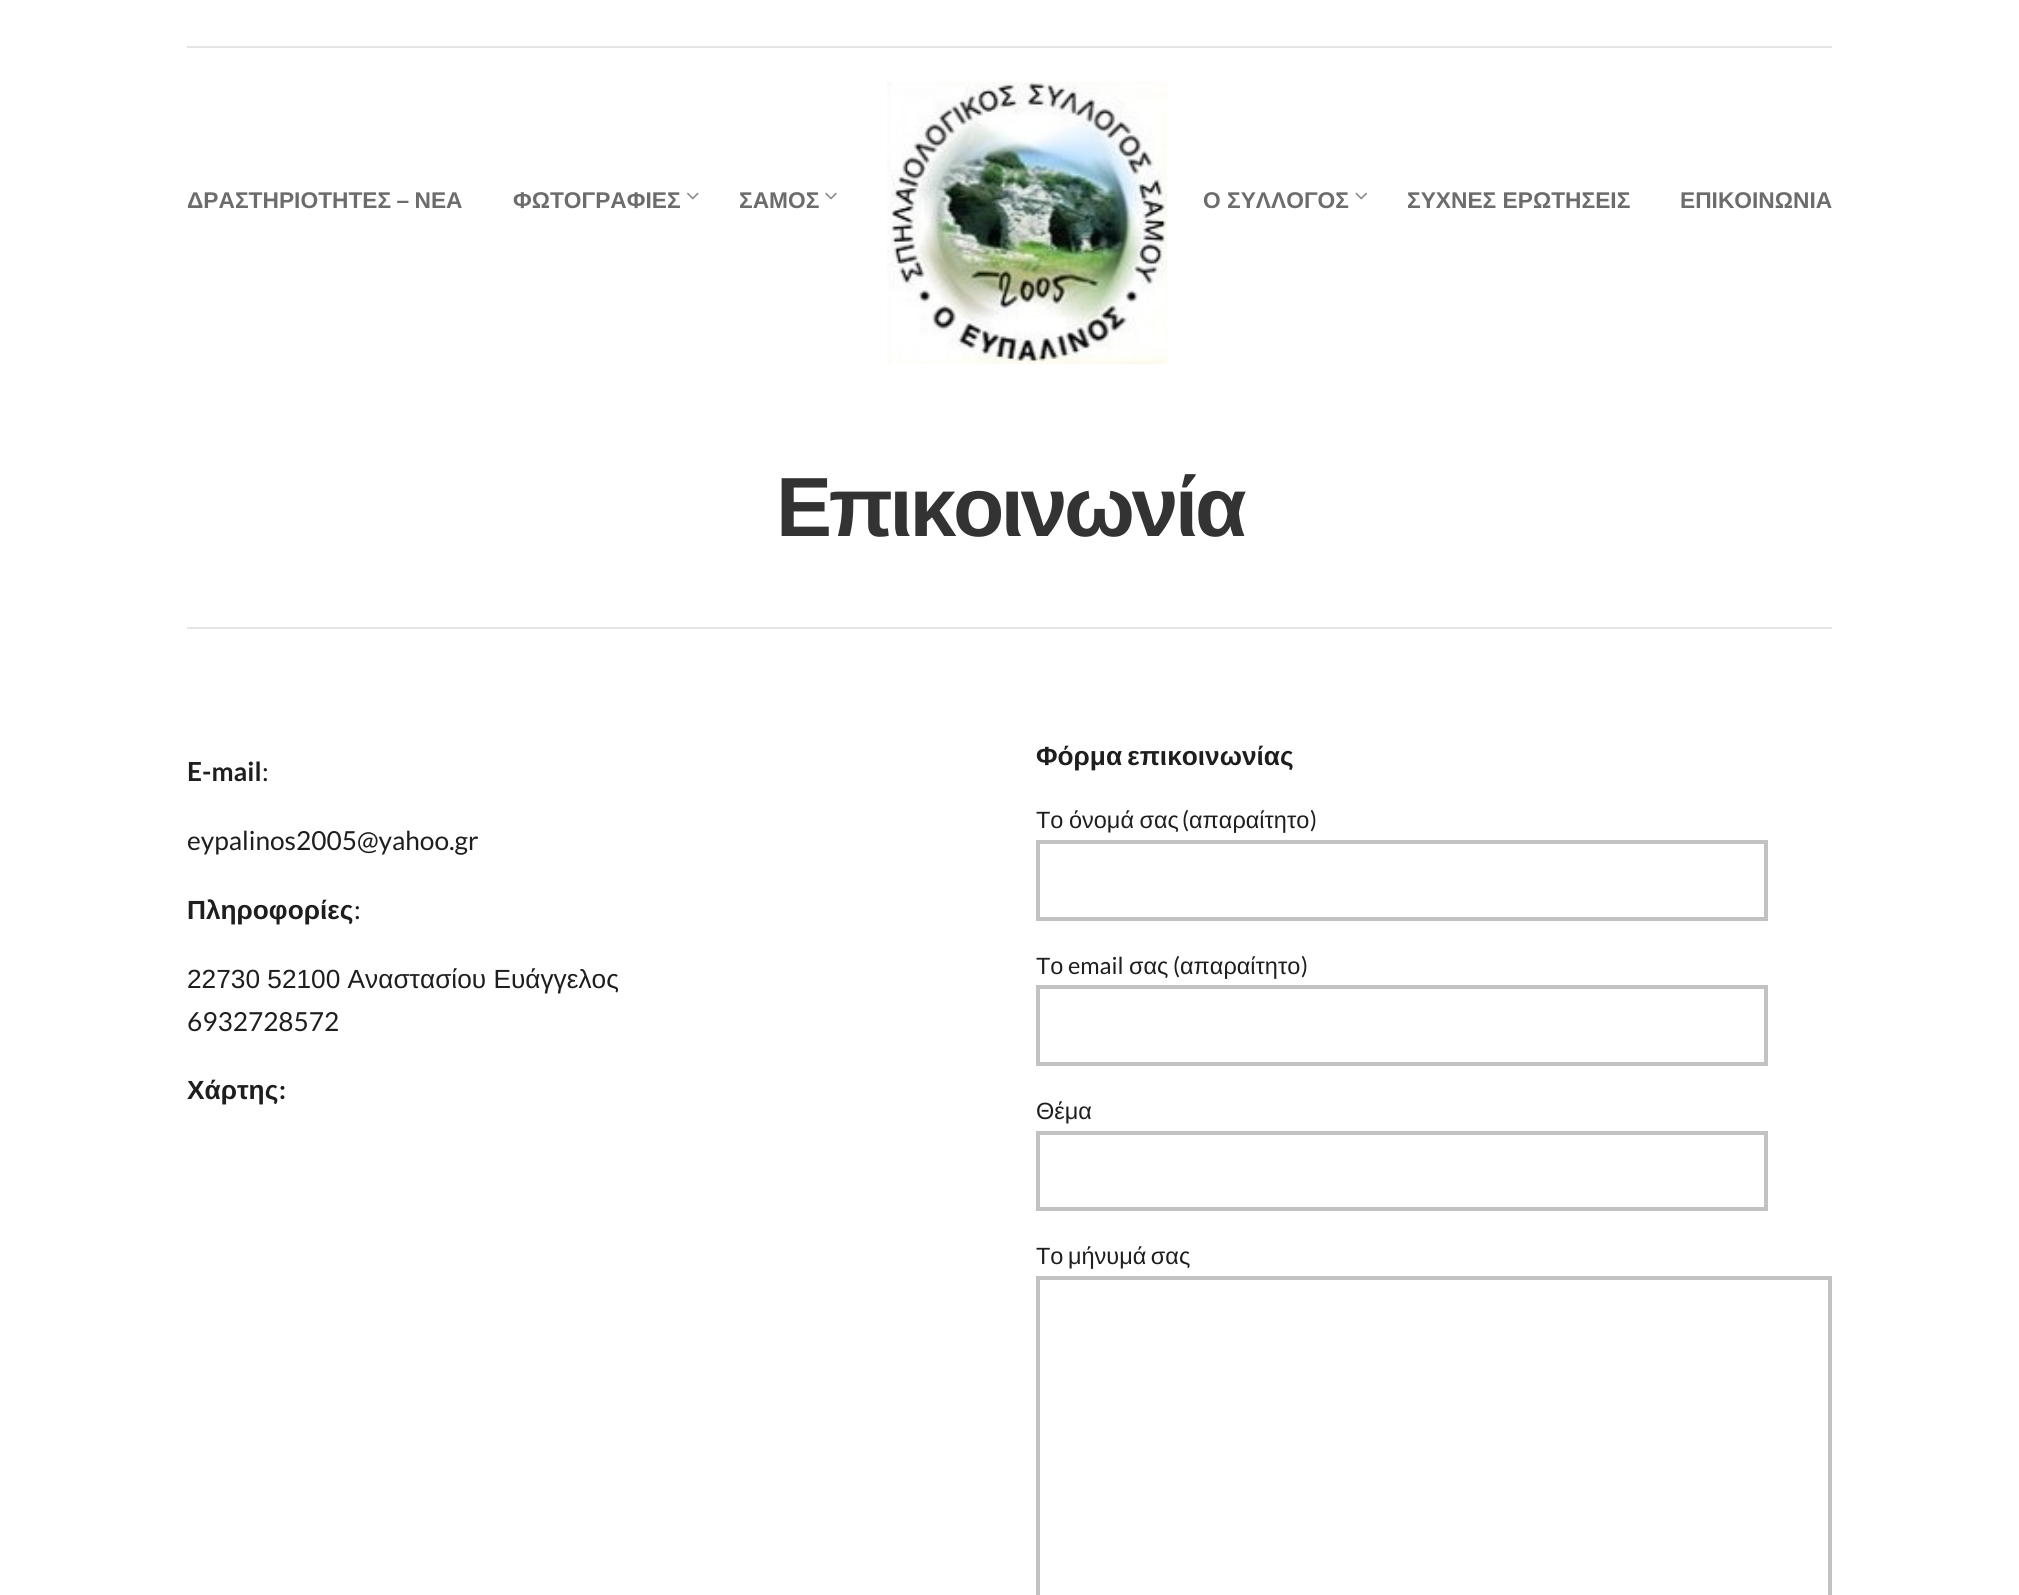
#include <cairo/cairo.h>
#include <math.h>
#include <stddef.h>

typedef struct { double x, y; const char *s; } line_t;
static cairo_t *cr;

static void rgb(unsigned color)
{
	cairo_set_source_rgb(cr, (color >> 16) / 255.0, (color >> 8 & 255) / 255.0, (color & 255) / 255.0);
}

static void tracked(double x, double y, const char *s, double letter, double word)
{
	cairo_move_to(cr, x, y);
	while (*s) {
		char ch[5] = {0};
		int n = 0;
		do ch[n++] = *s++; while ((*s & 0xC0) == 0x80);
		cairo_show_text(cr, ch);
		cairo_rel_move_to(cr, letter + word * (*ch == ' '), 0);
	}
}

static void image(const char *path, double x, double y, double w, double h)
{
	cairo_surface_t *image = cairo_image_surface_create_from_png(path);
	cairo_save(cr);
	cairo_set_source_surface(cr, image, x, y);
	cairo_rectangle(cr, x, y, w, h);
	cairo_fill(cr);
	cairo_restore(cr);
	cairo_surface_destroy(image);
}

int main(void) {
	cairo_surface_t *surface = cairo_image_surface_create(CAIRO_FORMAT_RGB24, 2019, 1595);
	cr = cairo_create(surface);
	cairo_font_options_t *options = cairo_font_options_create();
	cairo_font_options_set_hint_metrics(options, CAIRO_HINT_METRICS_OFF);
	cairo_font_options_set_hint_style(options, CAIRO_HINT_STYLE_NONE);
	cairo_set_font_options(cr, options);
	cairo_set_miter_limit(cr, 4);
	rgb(0xffffff);
	cairo_paint(cr);
	rgb(0xe5e5e5);
	cairo_rectangle(cr, 187, 46, 1645, 2);
	cairo_fill(cr);
	image("img/1.png", 687, 192, 12, 8);
	image("img/2.png", 825, 192, 12, 8);
	image("img/3.png", 887, 82, 281, 282);
	image("img/4.png", 1355, 192, 12, 8);
	cairo_rectangle(cr, 187, 627, 1645, 2);
	cairo_fill(cr);
	cairo_rectangle(cr, 1038, 842, 728, 77);
	rgb(0xc2c2c2);
	cairo_set_line_width(cr, 4);
	cairo_stroke(cr);
	cairo_rectangle(cr, 1038, 987, 728, 77);
	cairo_stroke(cr);
	cairo_rectangle(cr, 1038, 1133, 728, 76);
	cairo_stroke(cr);
	cairo_rectangle(cr, 1038, 1278, 792, 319);
	cairo_stroke(cr);
	cairo_select_font_face(cr, "Liberation Sans", CAIRO_FONT_SLANT_NORMAL, CAIRO_FONT_WEIGHT_BOLD);
	cairo_set_font_size(cr, 22.75);
	rgb(0x6c6c6c);
	tracked(187, 208, "ΔΡΑΣΤΗΡΙΟΤΗΤΕΣ – ΝΕΑ", 0, -1);
	{
		static const line_t items[] = {
			{513, 208, "ΦΩΤΟΓΡΑΦΙΕΣ"},
			{739, 208, "ΣΑΜΟΣ"},
			{1203, 208, "Ο ΣΥΛΛΟΓΟΣ"},
			{1407, 208, "ΣΥΧΝΕΣ ΕΡΩΤΗΣΕΙΣ"},
			{1680, 208, "ΕΠΙΚΟΙΝΩΝΙΑ"},
		};
		for (size_t i = 0; i < sizeof items / sizeof *items; i++) {
			cairo_move_to(cr, items[i].x, items[i].y);
			cairo_show_text(cr, items[i].s);
		}
	}
	cairo_set_font_size(cr, 84);
	rgb(0x333333);
	tracked(776, 536, "Επικοινωνία", -3.4, 0);
	cairo_select_font_face(cr, "Lato", CAIRO_FONT_SLANT_NORMAL, CAIRO_FONT_WEIGHT_BOLD);
	cairo_set_font_size(cr, 26.25);
	rgb(0x1e1e1e);
	cairo_move_to(cr, 187, 781);
	cairo_show_text(cr, "E-mail");
	cairo_select_font_face(cr, "Lato", CAIRO_FONT_SLANT_NORMAL, CAIRO_FONT_WEIGHT_NORMAL);
	cairo_move_to(cr, 262, 781);
	cairo_show_text(cr, ":");
	cairo_move_to(cr, 187, 850);
	cairo_show_text(cr, "eypalinos2005@yahoo.gr");
	cairo_select_font_face(cr, "Liberation Sans", CAIRO_FONT_SLANT_NORMAL, CAIRO_FONT_WEIGHT_BOLD);
	cairo_move_to(cr, 187, 919);
	cairo_show_text(cr, "Πληροφορίες");
	cairo_select_font_face(cr, "Lato", CAIRO_FONT_SLANT_NORMAL, CAIRO_FONT_WEIGHT_NORMAL);
	cairo_move_to(cr, 354, 919);
	cairo_show_text(cr, ":");
	cairo_select_font_face(cr, "Liberation Sans", CAIRO_FONT_SLANT_NORMAL, CAIRO_FONT_WEIGHT_NORMAL);
	cairo_move_to(cr, 187, 988);
	cairo_show_text(cr, "22730 52100 Αναστασίου Ευάγγελος");
	cairo_select_font_face(cr, "Lato", CAIRO_FONT_SLANT_NORMAL, CAIRO_FONT_WEIGHT_NORMAL);
	cairo_move_to(cr, 187, 1031);
	cairo_show_text(cr, "6932728572");
	cairo_select_font_face(cr, "Liberation Sans", CAIRO_FONT_SLANT_NORMAL, CAIRO_FONT_WEIGHT_BOLD);
	cairo_move_to(cr, 187, 1099);
	cairo_show_text(cr, "Χάρτης");
	cairo_select_font_face(cr, "Lato", CAIRO_FONT_SLANT_NORMAL, CAIRO_FONT_WEIGHT_BOLD);
	cairo_move_to(cr, 279, 1099);
	cairo_show_text(cr, ":");
	cairo_select_font_face(cr, "Liberation Sans", CAIRO_FONT_SLANT_NORMAL, CAIRO_FONT_WEIGHT_BOLD);
	tracked(1036, 765, "Φόρμα επικοινωνίας", 0, -2);
	cairo_select_font_face(cr, "Liberation Sans", CAIRO_FONT_SLANT_NORMAL, CAIRO_FONT_WEIGHT_NORMAL);
	cairo_set_font_size(cr, 23.5);
	tracked(1036, 828, "Το όνομά σας", 0, -1);
	cairo_select_font_face(cr, "Lato", CAIRO_FONT_SLANT_NORMAL, CAIRO_FONT_WEIGHT_NORMAL);
	cairo_move_to(cr, 1182, 828);
	cairo_show_text(cr, "(");
	cairo_select_font_face(cr, "Liberation Sans", CAIRO_FONT_SLANT_NORMAL, CAIRO_FONT_WEIGHT_NORMAL);
	cairo_move_to(cr, 1189, 828);
	cairo_show_text(cr, "απαραίτητο");
	cairo_select_font_face(cr, "Lato", CAIRO_FONT_SLANT_NORMAL, CAIRO_FONT_WEIGHT_NORMAL);
	cairo_move_to(cr, 1310, 828);
	cairo_show_text(cr, ")");
	cairo_select_font_face(cr, "Liberation Sans", CAIRO_FONT_SLANT_NORMAL, CAIRO_FONT_WEIGHT_NORMAL);
	cairo_move_to(cr, 1036, 974);
	cairo_show_text(cr, "Το");
	cairo_select_font_face(cr, "Lato", CAIRO_FONT_SLANT_NORMAL, CAIRO_FONT_WEIGHT_NORMAL);
	cairo_move_to(cr, 1068, 974);
	cairo_show_text(cr, "email");
	cairo_select_font_face(cr, "Liberation Sans", CAIRO_FONT_SLANT_NORMAL, CAIRO_FONT_WEIGHT_NORMAL);
	cairo_move_to(cr, 1129, 974);
	cairo_show_text(cr, "σας");
	cairo_select_font_face(cr, "Lato", CAIRO_FONT_SLANT_NORMAL, CAIRO_FONT_WEIGHT_NORMAL);
	cairo_move_to(cr, 1173, 974);
	cairo_show_text(cr, "(");
	cairo_select_font_face(cr, "Liberation Sans", CAIRO_FONT_SLANT_NORMAL, CAIRO_FONT_WEIGHT_NORMAL);
	cairo_move_to(cr, 1180, 974);
	cairo_show_text(cr, "απαραίτητο");
	cairo_select_font_face(cr, "Lato", CAIRO_FONT_SLANT_NORMAL, CAIRO_FONT_WEIGHT_NORMAL);
	cairo_move_to(cr, 1301, 974);
	cairo_show_text(cr, ")");
	cairo_select_font_face(cr, "Liberation Sans", CAIRO_FONT_SLANT_NORMAL, CAIRO_FONT_WEIGHT_NORMAL);
	cairo_move_to(cr, 1036, 1119);
	cairo_show_text(cr, "Θέμα");
	tracked(1036, 1264, "Το μήνυμά σας", 0, -2);
	cairo_surface_write_to_png(surface, "page.png");
	cairo_font_options_destroy(options);
	cairo_destroy(cr);
	cairo_surface_destroy(surface);
	return 0;
}
